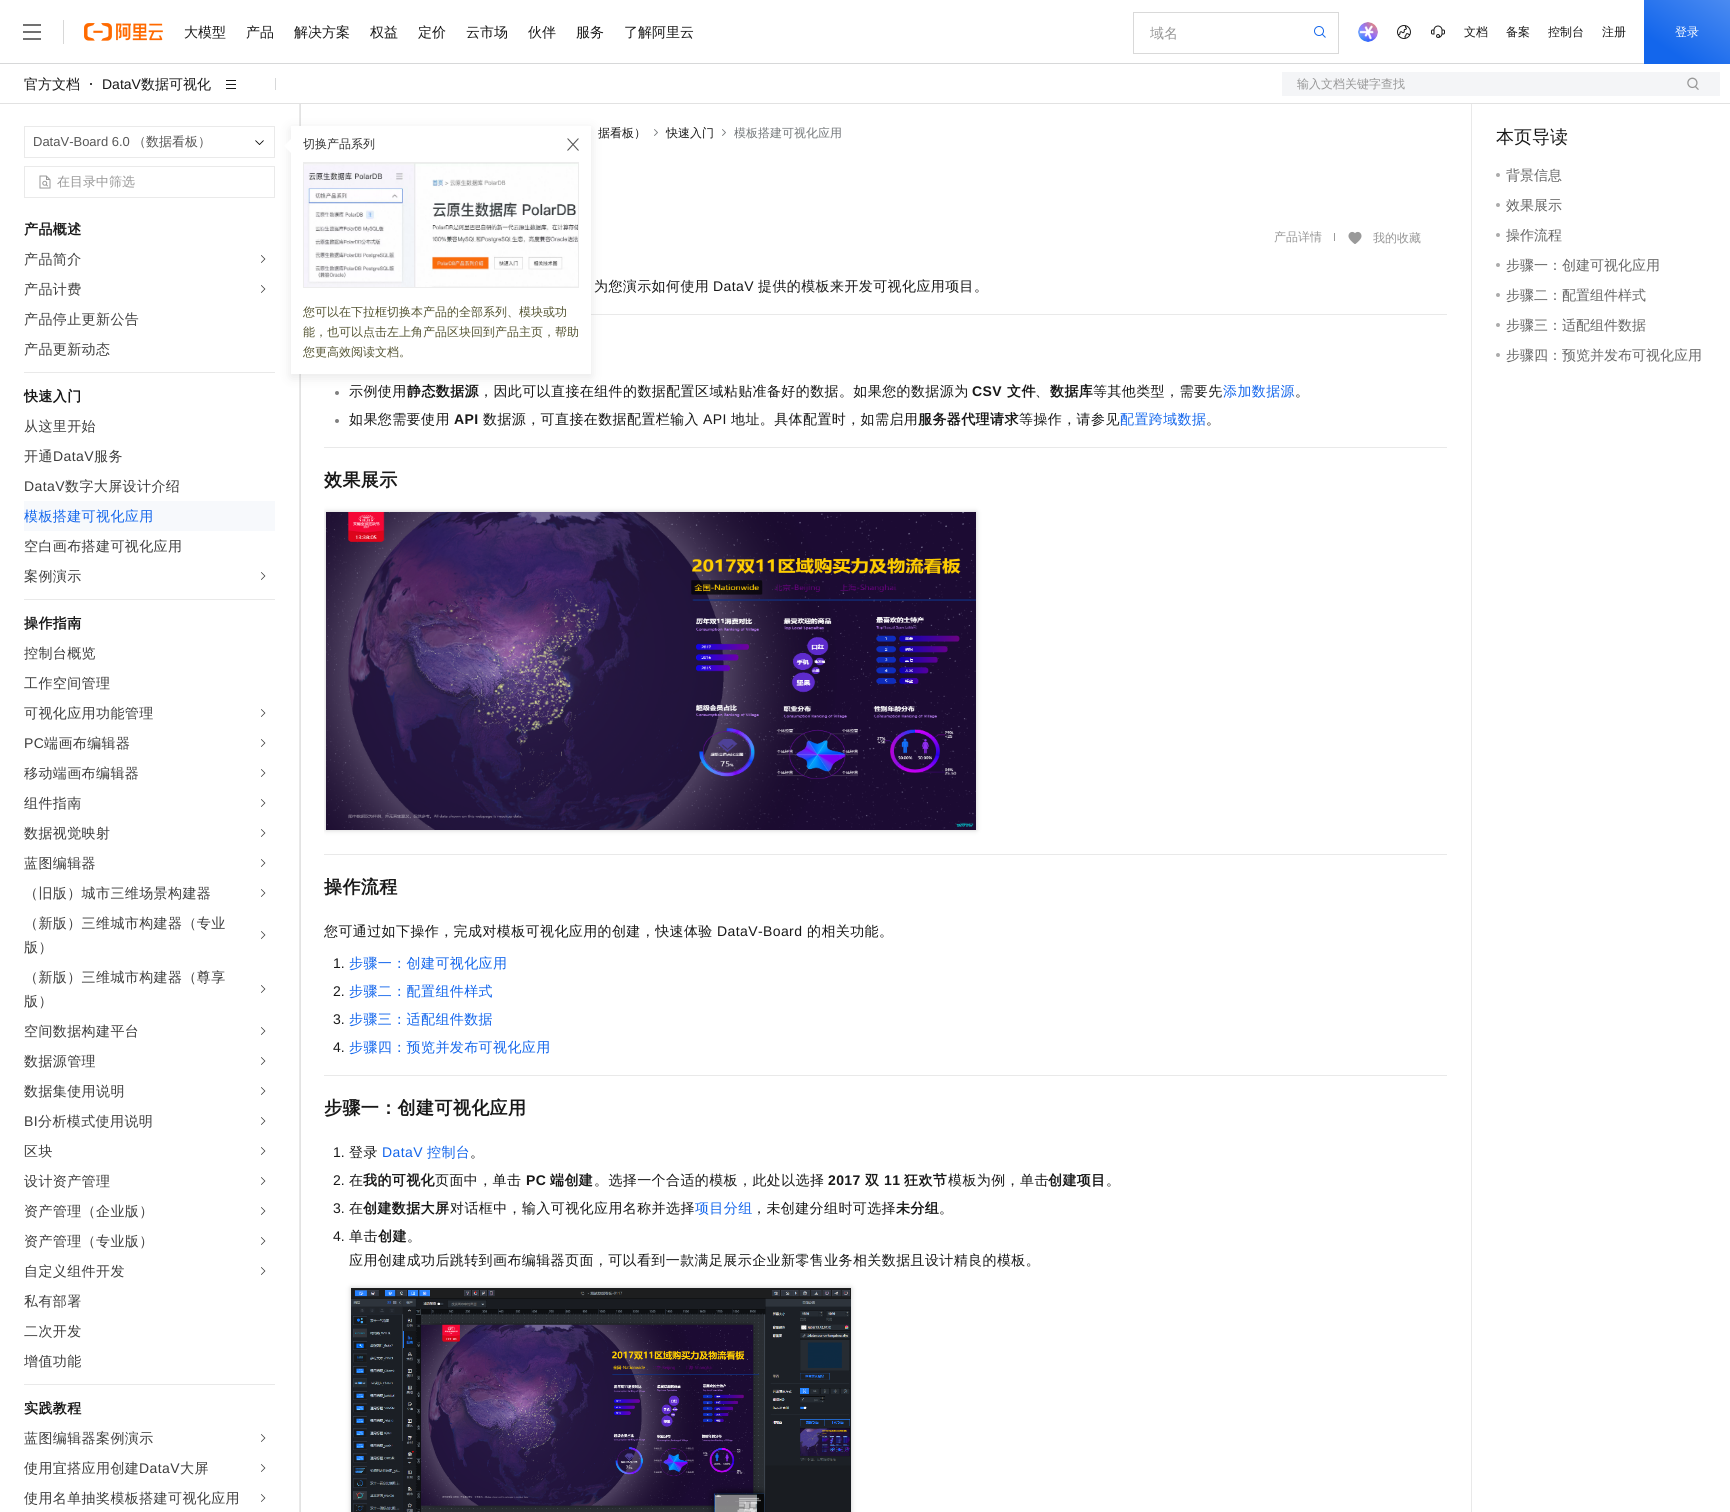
#include <cairo/cairo.h>
#include <math.h>
#include <stddef.h>

typedef struct { double x, y; const char *s; } line_t;
typedef struct { double x, y, w, h; unsigned color; } box_t;
static cairo_t *cr;

static void rgb(unsigned color)
{
	cairo_set_source_rgb(cr, (color >> 16) / 255.0, (color >> 8 & 255) / 255.0, (color & 255) / 255.0);
}

static void tracked(double x, double y, const char *s, double letter, double word)
{
	cairo_move_to(cr, x, y);
	while (*s) {
		char ch[5] = {0};
		int n = 0;
		do ch[n++] = *s++; while ((*s & 0xC0) == 0x80);
		cairo_show_text(cr, ch);
		cairo_rel_move_to(cr, letter + word * (*ch == ' '), 0);
	}
}

static void rrect(double x, double y, double w, double h, double r)
{
	cairo_new_sub_path(cr);
	cairo_arc(cr, x + w - r, y + h - r, r, 0, M_PI / 2);
	cairo_arc(cr, x + r, y + h - r, r, M_PI / 2, M_PI);
	cairo_arc(cr, x + r, y + r, r, M_PI, 1.5 * M_PI);
	cairo_arc(cr, x + w - r, y + r, r, 1.5 * M_PI, 2 * M_PI);
	cairo_close_path(cr);
}

static void soft_shadow(double x, double y, double w, double h, double r, double blur, double alpha)
{
	cairo_push_group_with_content(cr, CAIRO_CONTENT_ALPHA);
	cairo_set_operator(cr, CAIRO_OPERATOR_SOURCE);
	for (int i = 15; i >= -15 && fmin(w, h) + blur * i / 3 > 0; i -= 2) {
		double e = blur * i / 6;
		cairo_set_source_rgba(cr, 0, 0, 0, alpha * erfc((i - 1) / 8.5) / 2);
		rrect(x - e, y - e, w + 2 * e, h + 2 * e, fmax(0, fmin(r + e + blur * .6, fmin(w, h) / 2 + e)));
		cairo_fill(cr);
	}
	cairo_pattern_t *soft = cairo_pop_group(cr);
	cairo_mask(cr, soft);
	cairo_pattern_destroy(soft);
}

static void image(const char *path, double x, double y, double w, double h)
{
	cairo_surface_t *image = cairo_image_surface_create_from_png(path);
	cairo_save(cr);
	cairo_set_source_surface(cr, image, x, y);
	cairo_rectangle(cr, x, y, w, h);
	cairo_fill(cr);
	cairo_restore(cr);
	cairo_surface_destroy(image);
}

int main(void) {
	cairo_surface_t *surface = cairo_image_surface_create(CAIRO_FORMAT_RGB24, 1730, 1512);
	cr = cairo_create(surface);
	cairo_font_options_t *options = cairo_font_options_create();
	cairo_font_options_set_hint_metrics(options, CAIRO_HINT_METRICS_OFF);
	cairo_font_options_set_hint_style(options, CAIRO_HINT_STYLE_NONE);
	cairo_set_font_options(cr, options);
	cairo_set_miter_limit(cr, 4);
	cairo_pattern_t *gradient;
	rgb(0xffffff);
	cairo_paint(cr);
	{
		static const box_t items[] = {
			{0, 63, 1644, 1, 0xd7d8d9},
			{23, 24, 18, 2, 0x717171},
			{23, 31, 18, 2, 0x717171},
			{23, 38, 18, 2, 0x717171},
			{63, 20, 1, 24, 0xd8d8d8},
		};
		for (size_t i = 0; i < sizeof items / sizeof *items; i++) {
			rgb(items[i].color);
			cairo_rectangle(cr, items[i].x, items[i].y, items[i].w, items[i].h);
			cairo_fill(cr);
		}
	}
	image("img/1.png", 84, 23, 79, 18);
	cairo_rectangle(cr, 1133.5, 12.5, 205, 41);
	rgb(0xd9d9d9);
	cairo_set_line_width(cr, 1);
	cairo_stroke(cr);
	image("img/2.png", 1314, 26, 12, 12);
	image("img/3.png", 1358, 22, 20, 20);
	image("img/4.png", 1359, 25, 15, 15);
	image("img/5.png", 1397, 25, 14, 14);
	image("img/6.png", 1431, 25, 14, 13);
	gradient = cairo_pattern_create_linear(1715, -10, 1659, 74);
	cairo_pattern_add_color_stop_rgba(gradient, 0, 0.294, 0.545, 0.945, 1);
	cairo_pattern_add_color_stop_rgba(gradient, 0.75, 0.075, 0.4, 0.925, 1);
	cairo_set_source(cr, gradient);
	cairo_pattern_destroy(gradient);
	cairo_rectangle(cr, 1644, 0, 86, 64);
	cairo_fill(cr);
	rgb(0xe2e2e2);
	cairo_rectangle(cr, 0, 103, 1730, 1);
	cairo_fill(cr);
	rgb(0xd7d8d9);
	cairo_rectangle(cr, 275, 78, 1, 12);
	cairo_fill(cr);
	rgb(0x000000);
	cairo_arc(cr, 91, 84, 1, 0, 2 * M_PI);
	cairo_fill(cr);
	{
		static const box_t items[] = {
			{226, 80, 10, 1, 0x181818},
			{226, 84, 10, 1, 0x181818},
			{226, 88, 10, 1, 0x181818},
			{1282, 72, 438, 24, 0xf4f5f7},
		};
		for (size_t i = 0; i < sizeof items / sizeof *items; i++) {
			rgb(items[i].color);
			cairo_rectangle(cr, items[i].x, items[i].y, items[i].w, items[i].h);
			cairo_fill(cr);
		}
	}
	image("img/7.png", 1687, 77, 12, 13);
	rgb(0xe9e9e9);
	cairo_rectangle(cr, 299, 104, 1, 1408);
	cairo_fill(cr);
	rgb(0xe3e3e3);
	cairo_rectangle(cr, 300, 104, 1, 1408);
	cairo_fill(cr);
	cairo_rectangle(cr, 24.5, 126.5, 250, 31);
	rgb(0xeaeaea);
	cairo_stroke(cr);
	image("img/8.png", 255, 140, 9, 5);
	cairo_rectangle(cr, 24.5, 166.5, 250, 31);
	cairo_stroke(cr);
	rgb(0xe9e9e9);
	cairo_rectangle(cr, 24, 372, 251, 1);
	cairo_fill(cr);
	cairo_rectangle(cr, 591, 314, 856, 1);
	cairo_fill(cr);
	rgb(0x808080);
	cairo_arc(cr, 337, 393, 2, 0, 2 * M_PI);
	cairo_fill(cr);
	rgb(0x2f3133);
	soft_shadow(291, 129, 300, 248, 0, 6, 0.12);
	rgb(0xffffff);
	cairo_rectangle(cr, 291, 126, 300, 248);
	cairo_fill(cr);
	cairo_new_path(cr);
	cairo_move_to(cr, 292, 138);
	cairo_line_to(cr, 292, 154);
	cairo_line_to(cr, 284, 146);
	cairo_close_path(cr);
	cairo_fill(cr);
	image("img/9.png", 567, 138, 12, 13);
	cairo_rectangle(cr, 303.5, 162.5, 275, 125);
	rgb(0xededed);
	cairo_stroke(cr);
	image("img/10.png", 304, 163, 274, 124);
	image("img/11.png", 39, 175, 12, 14);
	image("img/12.png", 261, 255, 5, 8);
	image("img/12.png", 261, 285, 5, 8);
	rgb(0xe9e9e9);
	cairo_rectangle(cr, 24, 599, 251, 1);
	cairo_fill(cr);
	rgb(0xf7f9fc);
	cairo_rectangle(cr, 24, 501, 251, 30);
	cairo_fill(cr);
	image("img/12.png", 261, 572, 5, 8);
	rgb(0xe9e9e9);
	cairo_rectangle(cr, 24, 1384, 251, 1);
	cairo_fill(cr);
	image("img/12.png", 261, 709, 5, 8);
	image("img/12.png", 261, 739, 5, 8);
	image("img/12.png", 261, 769, 5, 8);
	image("img/12.png", 261, 799, 5, 8);
	image("img/12.png", 261, 829, 5, 8);
	image("img/12.png", 261, 859, 5, 8);
	image("img/12.png", 261, 889, 5, 8);
	image("img/12.png", 261, 931, 5, 8);
	image("img/12.png", 261, 985, 5, 8);
	image("img/12.png", 261, 1027, 5, 8);
	image("img/12.png", 261, 1057, 5, 8);
	image("img/12.png", 261, 1087, 5, 8);
	image("img/12.png", 261, 1117, 5, 8);
	image("img/12.png", 261, 1147, 5, 8);
	image("img/12.png", 261, 1177, 5, 8);
	image("img/12.png", 261, 1207, 5, 8);
	image("img/12.png", 261, 1237, 5, 8);
	image("img/12.png", 261, 1267, 5, 8);
	image("img/12.png", 261, 1434, 5, 8);
	image("img/12.png", 261, 1464, 5, 8);
	image("img/12.png", 261, 1494, 5, 8);
	cairo_rectangle(cr, 1471, 104, 1, 1408);
	cairo_fill(cr);
	image("img/13.png", 654, 129, 4, 7);
	image("img/13.png", 722, 129, 4, 7);
	rgb(0x999999);
	cairo_rectangle(cr, 1334, 233, 1, 8);
	cairo_fill(cr);
	image("img/14.png", 1348, 231, 14, 13);
	rgb(0x808080);
	cairo_arc(cr, 337, 421, 2, 0, 2 * M_PI);
	cairo_fill(cr);
	rgb(0xe9e9e9);
	cairo_rectangle(cr, 324, 447, 1123, 1);
	cairo_fill(cr);
	cairo_save(cr);
	cairo_rectangle(cr, 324, 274, 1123, 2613);
	cairo_clip(cr);
	rgb(0xcccccc);
	soft_shadow(326, 512, 650, 318, 0, 2.5, 1);
	cairo_restore(cr);
	image("img/15.png", 326, 512, 650, 318);
	cairo_rectangle(cr, 324, 854, 1123, 1);
	cairo_fill(cr);
	cairo_rectangle(cr, 324, 1075, 1123, 1);
	cairo_fill(cr);
	rgb(0xcccccc);
	soft_shadow(351, 1288, 500, 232, 0, 2.5, 1);
	image("img/16.png", 351, 1288, 500, 224);
	rgb(0xababab);
	cairo_arc(cr, 1498, 175, 2, 0, 2 * M_PI);
	cairo_fill(cr);
	cairo_arc(cr, 1498, 205, 2, 0, 2 * M_PI);
	cairo_fill(cr);
	cairo_arc(cr, 1498, 235, 2, 0, 2 * M_PI);
	cairo_fill(cr);
	cairo_arc(cr, 1498, 265, 2, 0, 2 * M_PI);
	cairo_fill(cr);
	cairo_arc(cr, 1498, 295, 2, 0, 2 * M_PI);
	cairo_fill(cr);
	cairo_arc(cr, 1498, 325, 2, 0, 2 * M_PI);
	cairo_fill(cr);
	cairo_arc(cr, 1498, 355, 2, 0, 2 * M_PI);
	cairo_fill(cr);
	cairo_select_font_face(cr, "WenQuanYi Zen Hei Medium", CAIRO_FONT_SLANT_NORMAL, CAIRO_FONT_WEIGHT_NORMAL);
	cairo_set_font_size(cr, 14);
	rgb(0x181818);
	{
		static const line_t items[] = {
			{184, 37, "大模型"},
			{246, 37, "产品"},
			{294, 37, "解决方案"},
			{370, 37, "权益"},
			{418, 37, "定价"},
			{466, 37, "云市场"},
			{528, 37, "伙伴"},
			{576, 37, "服务"},
			{624, 37, "了解阿里云"},
		};
		for (size_t i = 0; i < sizeof items / sizeof *items; i++) {
			cairo_move_to(cr, items[i].x, items[i].y);
			cairo_show_text(cr, items[i].s);
		}
	}
	rgb(0x979797);
	cairo_move_to(cr, 1150, 38);
	cairo_show_text(cr, "域名");
	cairo_set_font_size(cr, 12);
	rgb(0x181818);
	{
		static const line_t items[] = {
			{1464, 36, "文档"},
			{1506, 36, "备案"},
			{1548, 36, "控制台"},
			{1602, 36, "注册"},
		};
		for (size_t i = 0; i < sizeof items / sizeof *items; i++) {
			cairo_move_to(cr, items[i].x, items[i].y);
			cairo_show_text(cr, items[i].s);
		}
	}
	rgb(0xffffff);
	cairo_move_to(cr, 1675, 36);
	cairo_show_text(cr, "登录");
	cairo_set_font_size(cr, 14);
	rgb(0x181818);
	cairo_move_to(cr, 24, 89);
	cairo_show_text(cr, "官方文档");
	cairo_select_font_face(cr, "Liberation Sans", CAIRO_FONT_SLANT_NORMAL, CAIRO_FONT_WEIGHT_NORMAL);
	cairo_move_to(cr, 102, 89);
	cairo_show_text(cr, "DataV");
	cairo_select_font_face(cr, "WenQuanYi Zen Hei Medium", CAIRO_FONT_SLANT_NORMAL, CAIRO_FONT_WEIGHT_NORMAL);
	cairo_move_to(cr, 141, 89);
	cairo_show_text(cr, "数据可视化");
	cairo_set_font_size(cr, 12);
	rgb(0x979797);
	cairo_move_to(cr, 1297, 88);
	cairo_show_text(cr, "输入文档关键字查找");
	cairo_select_font_face(cr, "Liberation Sans", CAIRO_FONT_SLANT_NORMAL, CAIRO_FONT_WEIGHT_NORMAL);
	cairo_set_font_size(cr, 13);
	rgb(0x575757);
	cairo_move_to(cr, 33, 146);
	cairo_show_text(cr, "DataV-Board 6.0");
	cairo_select_font_face(cr, "WenQuanYi Zen Hei Medium", CAIRO_FONT_SLANT_NORMAL, CAIRO_FONT_WEIGHT_NORMAL);
	cairo_move_to(cr, 133, 146);
	cairo_show_text(cr, "（数据看板）");
	cairo_set_font_size(cr, 12);
	rgb(0x333333);
	cairo_move_to(cr, 303, 148);
	cairo_show_text(cr, "切换产品系列");
	rgb(0x555533);
	{
		static const line_t items[] = {
			{303, 316, "您可以在下拉框切换本产品的全部系列、模块或功"},
			{303, 336, "能，也可以点击左上角产品区块回到产品主页，帮助"},
			{303, 356, "您更高效阅读文档。"},
		};
		for (size_t i = 0; i < sizeof items / sizeof *items; i++) {
			cairo_move_to(cr, items[i].x, items[i].y);
			cairo_show_text(cr, items[i].s);
		}
	}
	cairo_set_font_size(cr, 13);
	rgb(0x979797);
	cairo_move_to(cr, 57, 186);
	cairo_show_text(cr, "在目录中筛选");
	cairo_select_font_face(cr, "WenQuanYi Zen Hei", CAIRO_FONT_SLANT_NORMAL, CAIRO_FONT_WEIGHT_BOLD);
	cairo_set_font_size(cr, 14);
	rgb(0x181818);
	tracked(24, 234, "产品概述", 0.4, 0);
	cairo_select_font_face(cr, "WenQuanYi Zen Hei Medium", CAIRO_FONT_SLANT_NORMAL, CAIRO_FONT_WEIGHT_NORMAL);
	rgb(0x3d3d3d);
	{
		static const line_t items[] = {
			{24, 264, "产品简介"},
			{24, 294, "产品计费"},
			{24, 324, "产品停止更新公告"},
			{24, 354, "产品更新动态"},
		};
		for (size_t i = 0; i < sizeof items / sizeof *items; i++) {
			tracked(items[i].x, items[i].y, items[i].s, 0.4, 0);
		}
	}
	cairo_select_font_face(cr, "WenQuanYi Zen Hei", CAIRO_FONT_SLANT_NORMAL, CAIRO_FONT_WEIGHT_BOLD);
	rgb(0x181818);
	tracked(24, 401, "快速入门", 0.4, 0);
	cairo_select_font_face(cr, "WenQuanYi Zen Hei Medium", CAIRO_FONT_SLANT_NORMAL, CAIRO_FONT_WEIGHT_NORMAL);
	rgb(0x3d3d3d);
	tracked(24, 431, "从这里开始", 0.4, 0);
	tracked(24, 461, "开通", 0.4, 0);
	cairo_select_font_face(cr, "Liberation Sans", CAIRO_FONT_SLANT_NORMAL, CAIRO_FONT_WEIGHT_NORMAL);
	tracked(53, 461, "DataV", 0.4, 0);
	cairo_select_font_face(cr, "WenQuanYi Zen Hei Medium", CAIRO_FONT_SLANT_NORMAL, CAIRO_FONT_WEIGHT_NORMAL);
	tracked(94, 461, "服务", 0.4, 0);
	cairo_select_font_face(cr, "Liberation Sans", CAIRO_FONT_SLANT_NORMAL, CAIRO_FONT_WEIGHT_NORMAL);
	tracked(24, 491, "DataV", 0.4, 0);
	cairo_select_font_face(cr, "WenQuanYi Zen Hei Medium", CAIRO_FONT_SLANT_NORMAL, CAIRO_FONT_WEIGHT_NORMAL);
	tracked(65, 491, "数字大屏设计介绍", 0.4, 0);
	rgb(0x1366ec);
	tracked(24, 521, "模板搭建可视化应用", 0.4, 0);
	rgb(0x3d3d3d);
	tracked(24, 551, "空白画布搭建可视化应用", 0.4, 0);
	tracked(24, 581, "案例演示", 0.4, 0);
	cairo_select_font_face(cr, "WenQuanYi Zen Hei", CAIRO_FONT_SLANT_NORMAL, CAIRO_FONT_WEIGHT_BOLD);
	rgb(0x181818);
	tracked(24, 628, "操作指南", 0.4, 0);
	cairo_select_font_face(cr, "WenQuanYi Zen Hei Medium", CAIRO_FONT_SLANT_NORMAL, CAIRO_FONT_WEIGHT_NORMAL);
	rgb(0x3d3d3d);
	{
		static const line_t items[] = {
			{24, 658, "控制台概览"},
			{24, 688, "工作空间管理"},
			{24, 718, "可视化应用功能管理"},
		};
		for (size_t i = 0; i < sizeof items / sizeof *items; i++) {
			tracked(items[i].x, items[i].y, items[i].s, 0.4, 0);
		}
	}
	cairo_select_font_face(cr, "Liberation Sans", CAIRO_FONT_SLANT_NORMAL, CAIRO_FONT_WEIGHT_NORMAL);
	tracked(24, 748, "PC", 0.4, 0);
	cairo_select_font_face(cr, "WenQuanYi Zen Hei Medium", CAIRO_FONT_SLANT_NORMAL, CAIRO_FONT_WEIGHT_NORMAL);
	{
		static const line_t items[] = {
			{44, 748, "端画布编辑器"},
			{24, 778, "移动端画布编辑器"},
			{24, 808, "组件指南"},
			{24, 838, "数据视觉映射"},
			{24, 868, "蓝图编辑器"},
			{24, 898, "（旧版）城市三维场景构建器"},
			{24, 928, "（新版）三维城市构建器（专业"},
			{24, 952, "版）"},
			{24, 982, "（新版）三维城市构建器（尊享"},
			{24, 1006, "版）"},
			{24, 1036, "空间数据构建平台"},
			{24, 1066, "数据源管理"},
			{24, 1096, "数据集使用说明"},
		};
		for (size_t i = 0; i < sizeof items / sizeof *items; i++) {
			tracked(items[i].x, items[i].y, items[i].s, 0.4, 0);
		}
	}
	cairo_select_font_face(cr, "Liberation Sans", CAIRO_FONT_SLANT_NORMAL, CAIRO_FONT_WEIGHT_NORMAL);
	tracked(24, 1126, "BI", 0.4, 0);
	cairo_select_font_face(cr, "WenQuanYi Zen Hei Medium", CAIRO_FONT_SLANT_NORMAL, CAIRO_FONT_WEIGHT_NORMAL);
	{
		static const line_t items[] = {
			{38, 1126, "分析模式使用说明"},
			{24, 1156, "区块"},
			{24, 1186, "设计资产管理"},
			{24, 1216, "资产管理（企业版）"},
			{24, 1246, "资产管理（专业版）"},
			{24, 1276, "自定义组件开发"},
			{24, 1306, "私有部署"},
			{24, 1336, "二次开发"},
			{24, 1366, "增值功能"},
		};
		for (size_t i = 0; i < sizeof items / sizeof *items; i++) {
			tracked(items[i].x, items[i].y, items[i].s, 0.4, 0);
		}
	}
	cairo_select_font_face(cr, "WenQuanYi Zen Hei", CAIRO_FONT_SLANT_NORMAL, CAIRO_FONT_WEIGHT_BOLD);
	rgb(0x181818);
	tracked(24, 1413, "实践教程", 0.4, 0);
	cairo_select_font_face(cr, "WenQuanYi Zen Hei Medium", CAIRO_FONT_SLANT_NORMAL, CAIRO_FONT_WEIGHT_NORMAL);
	rgb(0x3d3d3d);
	tracked(24, 1443, "蓝图编辑器案例演示", 0.4, 0);
	tracked(24, 1473, "使用宜搭应用创建", 0.4, 0);
	cairo_select_font_face(cr, "Liberation Sans", CAIRO_FONT_SLANT_NORMAL, CAIRO_FONT_WEIGHT_NORMAL);
	tracked(139, 1473, "DataV", 0.4, 0);
	cairo_select_font_face(cr, "WenQuanYi Zen Hei Medium", CAIRO_FONT_SLANT_NORMAL, CAIRO_FONT_WEIGHT_NORMAL);
	tracked(180, 1473, "大屏", 0.4, 0);
	tracked(24, 1503, "使用名单抽奖模板搭建可视化应用", 0.4, 0);
	cairo_set_font_size(cr, 12);
	rgb(0x181818);
	cairo_move_to(cr, 598, 137);
	cairo_show_text(cr, "据看板）");
	cairo_move_to(cr, 666, 137);
	cairo_show_text(cr, "快速入门");
	rgb(0x73777a);
	cairo_move_to(cr, 734, 137);
	cairo_show_text(cr, "模板搭建可视化应用");
	rgb(0x979797);
	cairo_move_to(cr, 1274, 241);
	cairo_show_text(cr, "产品详情");
	cairo_move_to(cr, 1373, 242);
	cairo_show_text(cr, "我的收藏");
	cairo_set_font_size(cr, 14);
	rgb(0x181818);
	tracked(594, 291, "为您演示如何使用", 0.4, 0);
	cairo_select_font_face(cr, "Liberation Sans", CAIRO_FONT_SLANT_NORMAL, CAIRO_FONT_WEIGHT_NORMAL);
	tracked(713, 291, "DataV", 0.4, 0);
	cairo_select_font_face(cr, "WenQuanYi Zen Hei Medium", CAIRO_FONT_SLANT_NORMAL, CAIRO_FONT_WEIGHT_NORMAL);
	tracked(758, 291, "提供的模板来开发可视化应用项目。", 0.4, 0);
	tracked(349, 396, "示例使用", 0.4, 0);
	cairo_select_font_face(cr, "WenQuanYi Zen Hei", CAIRO_FONT_SLANT_NORMAL, CAIRO_FONT_WEIGHT_BOLD);
	tracked(407, 396, "静态数据源", 0.4, 0);
	cairo_select_font_face(cr, "WenQuanYi Zen Hei Medium", CAIRO_FONT_SLANT_NORMAL, CAIRO_FONT_WEIGHT_NORMAL);
	tracked(479, 396, "，因此可以直接在组件的数据配置区域粘贴准备好的数据。如果您的数据源为", 0.4, 0);
	cairo_select_font_face(cr, "Liberation Sans", CAIRO_FONT_SLANT_NORMAL, CAIRO_FONT_WEIGHT_BOLD);
	tracked(972, 396, "CSV", 0.4, 0);
	cairo_select_font_face(cr, "WenQuanYi Zen Hei", CAIRO_FONT_SLANT_NORMAL, CAIRO_FONT_WEIGHT_BOLD);
	tracked(1007, 396, "文件", 0.4, 0);
	cairo_select_font_face(cr, "WenQuanYi Zen Hei Medium", CAIRO_FONT_SLANT_NORMAL, CAIRO_FONT_WEIGHT_NORMAL);
	tracked(1035, 396, "、", 0.4, 0);
	cairo_select_font_face(cr, "WenQuanYi Zen Hei", CAIRO_FONT_SLANT_NORMAL, CAIRO_FONT_WEIGHT_BOLD);
	tracked(1050, 396, "数据库", 0.4, 0);
	cairo_select_font_face(cr, "WenQuanYi Zen Hei Medium", CAIRO_FONT_SLANT_NORMAL, CAIRO_FONT_WEIGHT_NORMAL);
	tracked(1093, 396, "等其他类型，需要先", 0.4, 0);
	rgb(0x1366ec);
	tracked(1223, 396, "添加数据源", 0.4, 0);
	rgb(0x181818);
	tracked(1295, 396, "。", 0.4, 0);
	tracked(349, 424, "如果您需要使用", 0.4, 0);
	cairo_select_font_face(cr, "Liberation Sans", CAIRO_FONT_SLANT_NORMAL, CAIRO_FONT_WEIGHT_BOLD);
	tracked(454, 424, "API", 0.4, 0);
	cairo_select_font_face(cr, "WenQuanYi Zen Hei Medium", CAIRO_FONT_SLANT_NORMAL, CAIRO_FONT_WEIGHT_NORMAL);
	tracked(483, 424, "数据源，可直接在数据配置栏输入", 0.4, 0);
	cairo_select_font_face(cr, "Liberation Sans", CAIRO_FONT_SLANT_NORMAL, CAIRO_FONT_WEIGHT_NORMAL);
	tracked(703, 424, "API", 0.4, 0);
	cairo_select_font_face(cr, "WenQuanYi Zen Hei Medium", CAIRO_FONT_SLANT_NORMAL, CAIRO_FONT_WEIGHT_NORMAL);
	tracked(731, 424, "地址。具体配置时，如需启用", 0.4, 0);
	cairo_select_font_face(cr, "WenQuanYi Zen Hei", CAIRO_FONT_SLANT_NORMAL, CAIRO_FONT_WEIGHT_BOLD);
	tracked(918, 424, "服务器代理请求", 0.4, 0);
	cairo_select_font_face(cr, "WenQuanYi Zen Hei Medium", CAIRO_FONT_SLANT_NORMAL, CAIRO_FONT_WEIGHT_NORMAL);
	tracked(1019, 424, "等操作，请参见", 0.4, 0);
	rgb(0x1366ec);
	tracked(1120, 424, "配置跨域数据", 0.4, 0);
	rgb(0x181818);
	tracked(1206, 424, "。", 0.4, 0);
	cairo_select_font_face(cr, "WenQuanYi Zen Hei", CAIRO_FONT_SLANT_NORMAL, CAIRO_FONT_WEIGHT_BOLD);
	cairo_set_font_size(cr, 18);
	tracked(324, 486, "效果展示", 0.4, 0);
	tracked(324, 893, "操作流程", 0.4, 0);
	cairo_select_font_face(cr, "WenQuanYi Zen Hei Medium", CAIRO_FONT_SLANT_NORMAL, CAIRO_FONT_WEIGHT_NORMAL);
	cairo_set_font_size(cr, 14);
	tracked(324, 936, "您可通过如下操作，完成对模板可视化应用的创建，快速体验", 0.4, 0);
	cairo_select_font_face(cr, "Liberation Sans", CAIRO_FONT_SLANT_NORMAL, CAIRO_FONT_WEIGHT_NORMAL);
	tracked(717, 936, "DataV-Board", 0.4, 0);
	cairo_select_font_face(cr, "WenQuanYi Zen Hei Medium", CAIRO_FONT_SLANT_NORMAL, CAIRO_FONT_WEIGHT_NORMAL);
	tracked(807, 936, "的相关功能。", 0.4, 0);
	cairo_select_font_face(cr, "Liberation Sans", CAIRO_FONT_SLANT_NORMAL, CAIRO_FONT_WEIGHT_NORMAL);
	cairo_move_to(cr, 333, 968);
	cairo_show_text(cr, "1.");
	cairo_select_font_face(cr, "WenQuanYi Zen Hei Medium", CAIRO_FONT_SLANT_NORMAL, CAIRO_FONT_WEIGHT_NORMAL);
	rgb(0x1366ec);
	tracked(349, 968, "步骤一：创建可视化应用", 0.4, 0);
	cairo_select_font_face(cr, "Liberation Sans", CAIRO_FONT_SLANT_NORMAL, CAIRO_FONT_WEIGHT_NORMAL);
	rgb(0x181818);
	cairo_move_to(cr, 333, 996);
	cairo_show_text(cr, "2.");
	cairo_select_font_face(cr, "WenQuanYi Zen Hei Medium", CAIRO_FONT_SLANT_NORMAL, CAIRO_FONT_WEIGHT_NORMAL);
	rgb(0x1366ec);
	tracked(349, 996, "步骤二：配置组件样式", 0.4, 0);
	cairo_select_font_face(cr, "Liberation Sans", CAIRO_FONT_SLANT_NORMAL, CAIRO_FONT_WEIGHT_NORMAL);
	rgb(0x181818);
	cairo_move_to(cr, 333, 1024);
	cairo_show_text(cr, "3.");
	cairo_select_font_face(cr, "WenQuanYi Zen Hei Medium", CAIRO_FONT_SLANT_NORMAL, CAIRO_FONT_WEIGHT_NORMAL);
	rgb(0x1366ec);
	tracked(349, 1024, "步骤三：适配组件数据", 0.4, 0);
	cairo_select_font_face(cr, "Liberation Sans", CAIRO_FONT_SLANT_NORMAL, CAIRO_FONT_WEIGHT_NORMAL);
	rgb(0x181818);
	cairo_move_to(cr, 333, 1052);
	cairo_show_text(cr, "4.");
	cairo_select_font_face(cr, "WenQuanYi Zen Hei Medium", CAIRO_FONT_SLANT_NORMAL, CAIRO_FONT_WEIGHT_NORMAL);
	rgb(0x1366ec);
	tracked(349, 1052, "步骤四：预览并发布可视化应用", 0.4, 0);
	cairo_select_font_face(cr, "WenQuanYi Zen Hei", CAIRO_FONT_SLANT_NORMAL, CAIRO_FONT_WEIGHT_BOLD);
	cairo_set_font_size(cr, 18);
	rgb(0x181818);
	tracked(324, 1114, "步骤一：创建可视化应用", 0.4, 0);
	cairo_select_font_face(cr, "Liberation Sans", CAIRO_FONT_SLANT_NORMAL, CAIRO_FONT_WEIGHT_NORMAL);
	cairo_set_font_size(cr, 14);
	cairo_move_to(cr, 333, 1157);
	cairo_show_text(cr, "1.");
	cairo_select_font_face(cr, "WenQuanYi Zen Hei Medium", CAIRO_FONT_SLANT_NORMAL, CAIRO_FONT_WEIGHT_NORMAL);
	tracked(349, 1157, "登录", 0.4, 0);
	cairo_select_font_face(cr, "Liberation Sans", CAIRO_FONT_SLANT_NORMAL, CAIRO_FONT_WEIGHT_NORMAL);
	rgb(0x1366ec);
	tracked(382, 1157, "DataV", 0.4, 0);
	cairo_select_font_face(cr, "WenQuanYi Zen Hei Medium", CAIRO_FONT_SLANT_NORMAL, CAIRO_FONT_WEIGHT_NORMAL);
	tracked(427, 1157, "控制台", 0.4, 0);
	rgb(0x181818);
	tracked(470, 1157, "。", 0.4, 0);
	cairo_select_font_face(cr, "Liberation Sans", CAIRO_FONT_SLANT_NORMAL, CAIRO_FONT_WEIGHT_NORMAL);
	cairo_move_to(cr, 333, 1185);
	cairo_show_text(cr, "2.");
	cairo_select_font_face(cr, "WenQuanYi Zen Hei Medium", CAIRO_FONT_SLANT_NORMAL, CAIRO_FONT_WEIGHT_NORMAL);
	tracked(349, 1185, "在", 0.4, 0);
	cairo_select_font_face(cr, "WenQuanYi Zen Hei", CAIRO_FONT_SLANT_NORMAL, CAIRO_FONT_WEIGHT_BOLD);
	tracked(363, 1185, "我的可视化", 0.4, 0);
	cairo_select_font_face(cr, "WenQuanYi Zen Hei Medium", CAIRO_FONT_SLANT_NORMAL, CAIRO_FONT_WEIGHT_NORMAL);
	tracked(435, 1185, "页面中，单击", 0.4, 0);
	cairo_select_font_face(cr, "Liberation Sans", CAIRO_FONT_SLANT_NORMAL, CAIRO_FONT_WEIGHT_BOLD);
	tracked(526, 1185, "PC", 0.4, 0);
	cairo_select_font_face(cr, "WenQuanYi Zen Hei", CAIRO_FONT_SLANT_NORMAL, CAIRO_FONT_WEIGHT_BOLD);
	tracked(550, 1185, "端创建", 0.4, 0);
	cairo_select_font_face(cr, "WenQuanYi Zen Hei Medium", CAIRO_FONT_SLANT_NORMAL, CAIRO_FONT_WEIGHT_NORMAL);
	tracked(594, 1185, "。选择一个合适的模板，此处以选择", 0.4, 0);
	cairo_select_font_face(cr, "Liberation Sans", CAIRO_FONT_SLANT_NORMAL, CAIRO_FONT_WEIGHT_BOLD);
	tracked(828, 1185, "2017", 0.4, 0);
	cairo_select_font_face(cr, "WenQuanYi Zen Hei", CAIRO_FONT_SLANT_NORMAL, CAIRO_FONT_WEIGHT_BOLD);
	tracked(865, 1185, "双", 0.4, 0);
	cairo_select_font_face(cr, "Liberation Sans", CAIRO_FONT_SLANT_NORMAL, CAIRO_FONT_WEIGHT_BOLD);
	tracked(884, 1185, "11", 0.4, 0);
	cairo_select_font_face(cr, "WenQuanYi Zen Hei", CAIRO_FONT_SLANT_NORMAL, CAIRO_FONT_WEIGHT_BOLD);
	tracked(904, 1185, "狂欢节", 0.4, 0);
	cairo_select_font_face(cr, "WenQuanYi Zen Hei Medium", CAIRO_FONT_SLANT_NORMAL, CAIRO_FONT_WEIGHT_NORMAL);
	tracked(948, 1185, "模板为例，单击", 0.4, 0);
	cairo_select_font_face(cr, "WenQuanYi Zen Hei", CAIRO_FONT_SLANT_NORMAL, CAIRO_FONT_WEIGHT_BOLD);
	tracked(1048, 1185, "创建项目", 0.4, 0);
	cairo_select_font_face(cr, "WenQuanYi Zen Hei Medium", CAIRO_FONT_SLANT_NORMAL, CAIRO_FONT_WEIGHT_NORMAL);
	tracked(1106, 1185, "。", 0.4, 0);
	cairo_select_font_face(cr, "Liberation Sans", CAIRO_FONT_SLANT_NORMAL, CAIRO_FONT_WEIGHT_NORMAL);
	cairo_move_to(cr, 333, 1213);
	cairo_show_text(cr, "3.");
	cairo_select_font_face(cr, "WenQuanYi Zen Hei Medium", CAIRO_FONT_SLANT_NORMAL, CAIRO_FONT_WEIGHT_NORMAL);
	tracked(349, 1213, "在", 0.4, 0);
	cairo_select_font_face(cr, "WenQuanYi Zen Hei", CAIRO_FONT_SLANT_NORMAL, CAIRO_FONT_WEIGHT_BOLD);
	tracked(363, 1213, "创建数据大屏", 0.4, 0);
	cairo_select_font_face(cr, "WenQuanYi Zen Hei Medium", CAIRO_FONT_SLANT_NORMAL, CAIRO_FONT_WEIGHT_NORMAL);
	tracked(450, 1213, "对话框中，输入可视化应用名称并选择", 0.4, 0);
	rgb(0x1366ec);
	tracked(695, 1213, "项目分组", 0.4, 0);
	rgb(0x181818);
	tracked(752, 1213, "，未创建分组时可选择", 0.4, 0);
	cairo_select_font_face(cr, "WenQuanYi Zen Hei", CAIRO_FONT_SLANT_NORMAL, CAIRO_FONT_WEIGHT_BOLD);
	tracked(896, 1213, "未分组", 0.4, 0);
	cairo_select_font_face(cr, "WenQuanYi Zen Hei Medium", CAIRO_FONT_SLANT_NORMAL, CAIRO_FONT_WEIGHT_NORMAL);
	tracked(939, 1213, "。", 0.4, 0);
	cairo_select_font_face(cr, "Liberation Sans", CAIRO_FONT_SLANT_NORMAL, CAIRO_FONT_WEIGHT_NORMAL);
	cairo_move_to(cr, 333, 1241);
	cairo_show_text(cr, "4.");
	cairo_select_font_face(cr, "WenQuanYi Zen Hei Medium", CAIRO_FONT_SLANT_NORMAL, CAIRO_FONT_WEIGHT_NORMAL);
	tracked(349, 1241, "单击", 0.4, 0);
	cairo_select_font_face(cr, "WenQuanYi Zen Hei", CAIRO_FONT_SLANT_NORMAL, CAIRO_FONT_WEIGHT_BOLD);
	tracked(378, 1241, "创建", 0.4, 0);
	cairo_select_font_face(cr, "WenQuanYi Zen Hei Medium", CAIRO_FONT_SLANT_NORMAL, CAIRO_FONT_WEIGHT_NORMAL);
	tracked(407, 1241, "。", 0.4, 0);
	tracked(349, 1265, "应用创建成功后跳转到画布编辑器页面，可以看到一款满足展示企业新零售业务相关数据且设计精良的模板。", 0.4, 0);
	cairo_set_font_size(cr, 18);
	cairo_move_to(cr, 1496, 143);
	cairo_show_text(cr, "本页导读");
	cairo_set_font_size(cr, 14);
	rgb(0x666666);
	{
		static const line_t items[] = {
			{1506, 180, "背景信息"},
			{1506, 210, "效果展示"},
			{1506, 240, "操作流程"},
			{1506, 270, "步骤一：创建可视化应用"},
			{1506, 300, "步骤二：配置组件样式"},
			{1506, 330, "步骤三：适配组件数据"},
			{1506, 360, "步骤四：预览并发布可视化应用"},
		};
		for (size_t i = 0; i < sizeof items / sizeof *items; i++) {
			cairo_move_to(cr, items[i].x, items[i].y);
			cairo_show_text(cr, items[i].s);
		}
	}
	cairo_surface_write_to_png(surface, "page.png");
	cairo_font_options_destroy(options);
	cairo_destroy(cr);
	cairo_surface_destroy(surface);
	return 0;
}
